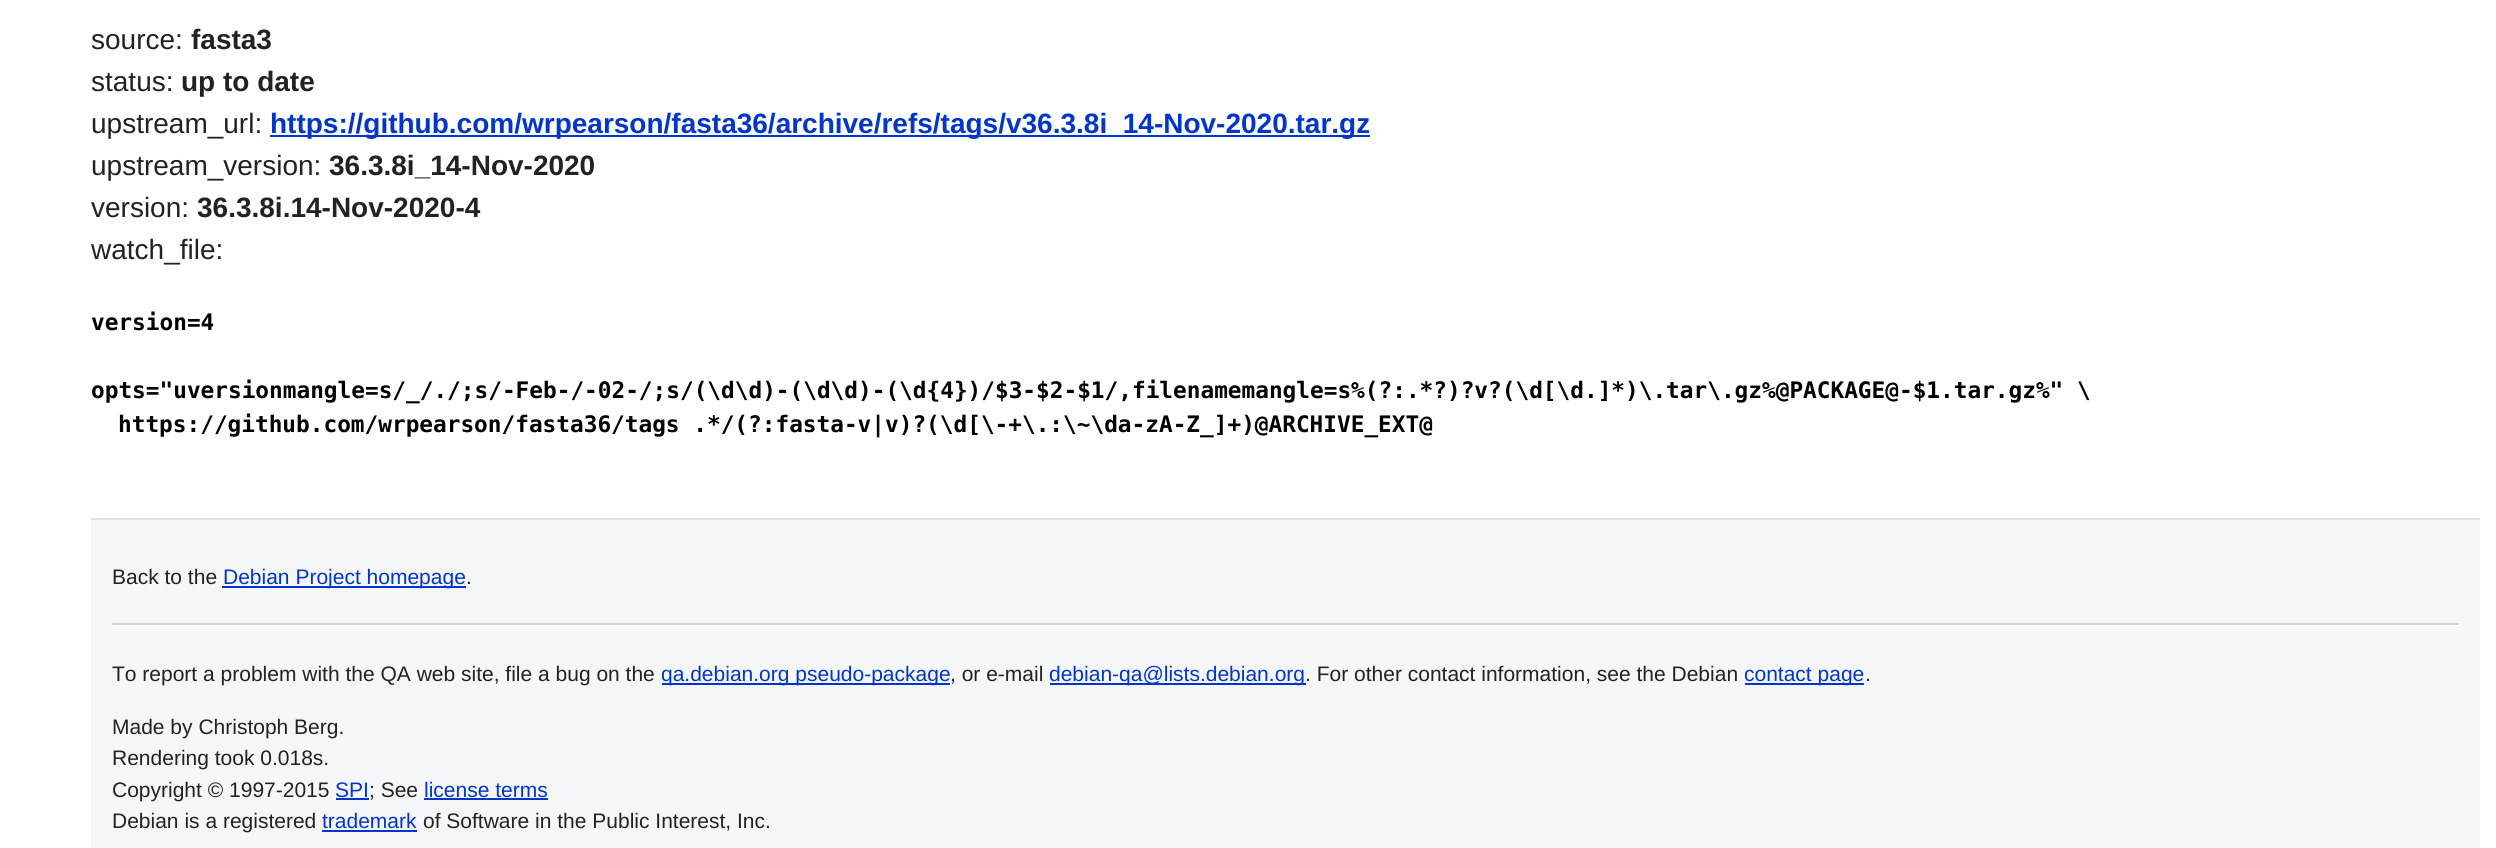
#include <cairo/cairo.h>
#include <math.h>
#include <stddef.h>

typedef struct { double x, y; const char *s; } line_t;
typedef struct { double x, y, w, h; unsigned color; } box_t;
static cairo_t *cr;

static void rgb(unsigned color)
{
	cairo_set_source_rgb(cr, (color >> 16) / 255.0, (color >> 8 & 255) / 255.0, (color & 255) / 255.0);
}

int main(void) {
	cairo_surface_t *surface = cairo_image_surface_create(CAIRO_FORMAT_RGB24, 2496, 848);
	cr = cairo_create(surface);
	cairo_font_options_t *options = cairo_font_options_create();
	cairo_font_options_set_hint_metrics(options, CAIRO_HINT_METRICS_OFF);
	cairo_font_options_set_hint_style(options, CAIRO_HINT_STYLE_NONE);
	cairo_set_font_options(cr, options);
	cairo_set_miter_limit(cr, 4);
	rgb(0xffffff);
	cairo_paint(cr);
	{
		static const box_t items[] = {
			{270, 135, 1100, 2, 0x0035c7},
			{91, 520, 2389, 328, 0xf5f6f7},
			{91, 518, 2389, 2, 0xdfdfe0},
			{222, 586, 244, 2, 0x0035c7},
			{112, 623, 2347, 2, 0xd2d3d7},
			{112, 625, 2347, 2, 0xffffff},
			{662, 683, 288, 2, 0x0035c7},
			{1050, 683, 256, 2, 0x0035c7},
			{1745, 683, 119, 2, 0x0035c7},
			{336, 798, 33, 2, 0x0035c7},
			{424, 798, 124, 2, 0x0035c7},
			{322, 830, 95, 2, 0x0035c7},
		};
		for (size_t i = 0; i < sizeof items / sizeof *items; i++) {
			rgb(items[i].color);
			cairo_rectangle(cr, items[i].x, items[i].y, items[i].w, items[i].h);
			cairo_fill(cr);
		}
	}
	cairo_select_font_face(cr, "Liberation Sans", CAIRO_FONT_SLANT_NORMAL, CAIRO_FONT_WEIGHT_NORMAL);
	cairo_set_font_size(cr, 28);
	rgb(0x222222);
	cairo_move_to(cr, 91, 49);
	cairo_show_text(cr, "source:");
	cairo_select_font_face(cr, "Liberation Sans", CAIRO_FONT_SLANT_NORMAL, CAIRO_FONT_WEIGHT_BOLD);
	cairo_move_to(cr, 191, 49);
	cairo_show_text(cr, "fasta3");
	cairo_select_font_face(cr, "Liberation Sans", CAIRO_FONT_SLANT_NORMAL, CAIRO_FONT_WEIGHT_NORMAL);
	cairo_move_to(cr, 91, 91);
	cairo_show_text(cr, "status:");
	cairo_select_font_face(cr, "Liberation Sans", CAIRO_FONT_SLANT_NORMAL, CAIRO_FONT_WEIGHT_BOLD);
	cairo_move_to(cr, 181, 91);
	cairo_show_text(cr, "up to date");
	cairo_select_font_face(cr, "Liberation Sans", CAIRO_FONT_SLANT_NORMAL, CAIRO_FONT_WEIGHT_NORMAL);
	cairo_move_to(cr, 91, 133);
	cairo_show_text(cr, "upstream_url:");
	cairo_select_font_face(cr, "Liberation Sans", CAIRO_FONT_SLANT_NORMAL, CAIRO_FONT_WEIGHT_BOLD);
	rgb(0x0035c7);
	cairo_move_to(cr, 270, 133);
	cairo_show_text(cr, "https://github.com/wrpearson/fasta36/archive/refs/tags/v36.3.8i_14-Nov-2020.tar.gz");
	cairo_select_font_face(cr, "Liberation Sans", CAIRO_FONT_SLANT_NORMAL, CAIRO_FONT_WEIGHT_NORMAL);
	rgb(0x222222);
	cairo_move_to(cr, 91, 175);
	cairo_show_text(cr, "upstream_version:");
	cairo_select_font_face(cr, "Liberation Sans", CAIRO_FONT_SLANT_NORMAL, CAIRO_FONT_WEIGHT_BOLD);
	cairo_move_to(cr, 329, 175);
	cairo_show_text(cr, "36.3.8i_14-Nov-2020");
	cairo_select_font_face(cr, "Liberation Sans", CAIRO_FONT_SLANT_NORMAL, CAIRO_FONT_WEIGHT_NORMAL);
	cairo_move_to(cr, 91, 217);
	cairo_show_text(cr, "version:");
	cairo_select_font_face(cr, "Liberation Sans", CAIRO_FONT_SLANT_NORMAL, CAIRO_FONT_WEIGHT_BOLD);
	cairo_move_to(cr, 197, 217);
	cairo_show_text(cr, "36.3.8i.14-Nov-2020-4");
	cairo_select_font_face(cr, "Liberation Sans", CAIRO_FONT_SLANT_NORMAL, CAIRO_FONT_WEIGHT_NORMAL);
	cairo_move_to(cr, 91, 259);
	cairo_show_text(cr, "watch_file:");
	cairo_select_font_face(cr, "DejaVu Sans Mono", CAIRO_FONT_SLANT_NORMAL, CAIRO_FONT_WEIGHT_BOLD);
	cairo_set_font_size(cr, 22.75);
	rgb(0x000000);
	{
		static const line_t items[] = {
			{91, 330, "version=4"},
			{91, 398, "opts=\"uversionmangle=s/_/./;s/-Feb-/-02-/;s/(\\d\\d)-(\\d\\d)-(\\d{4})/$3-$2-$1/,filenamemangle=s%(?:.*?)?v?(\\d[\\d.]*)\\.tar\\.gz%@PACKAGE@-$1.tar.gz%\" \\"},
			{118, 432, "https://github.com/wrpearson/fasta36/tags .*/(?:fasta-v|v)?(\\d[\\-+\\.:\\~\\da-zA-Z_]+)@ARCHIVE_EXT@"},
		};
		for (size_t i = 0; i < sizeof items / sizeof *items; i++) {
			cairo_move_to(cr, items[i].x, items[i].y);
			cairo_show_text(cr, items[i].s);
		}
	}
	cairo_select_font_face(cr, "Liberation Sans", CAIRO_FONT_SLANT_NORMAL, CAIRO_FONT_WEIGHT_NORMAL);
	cairo_set_font_size(cr, 21);
	rgb(0x222222);
	cairo_move_to(cr, 112, 584);
	cairo_show_text(cr, "Back to the");
	rgb(0x0035c7);
	cairo_move_to(cr, 223, 584);
	cairo_show_text(cr, "Debian Project homepage");
	rgb(0x222222);
	cairo_move_to(cr, 466, 584);
	cairo_show_text(cr, ".");
	cairo_move_to(cr, 112, 681);
	cairo_show_text(cr, "To report a problem with the QA web site, file a bug on the");
	rgb(0x0035c7);
	cairo_move_to(cr, 661, 681);
	cairo_show_text(cr, "qa.debian.org pseudo-package");
	rgb(0x222222);
	cairo_move_to(cr, 950, 681);
	cairo_show_text(cr, ", or e-mail");
	rgb(0x0035c7);
	cairo_move_to(cr, 1049, 681);
	cairo_show_text(cr, "debian-qa@lists.debian.org");
	rgb(0x222222);
	cairo_move_to(cr, 1305, 681);
	cairo_show_text(cr, ". For other contact information, see the Debian");
	rgb(0x0035c7);
	cairo_move_to(cr, 1744, 681);
	cairo_show_text(cr, "contact page");
	rgb(0x222222);
	{
		static const line_t items[] = {
			{1865, 681, "."},
			{112, 734, "Made by Christoph Berg."},
			{112, 765, "Rendering took 0.018s."},
			{112, 797, "Copyright © 1997-2015"},
		};
		for (size_t i = 0; i < sizeof items / sizeof *items; i++) {
			cairo_move_to(cr, items[i].x, items[i].y);
			cairo_show_text(cr, items[i].s);
		}
	}
	rgb(0x0035c7);
	cairo_move_to(cr, 335, 797);
	cairo_show_text(cr, "SPI");
	rgb(0x222222);
	cairo_move_to(cr, 369, 797);
	cairo_show_text(cr, "; See");
	rgb(0x0035c7);
	cairo_move_to(cr, 424, 797);
	cairo_show_text(cr, "license terms");
	rgb(0x222222);
	cairo_move_to(cr, 112, 828);
	cairo_show_text(cr, "Debian is a registered");
	rgb(0x0035c7);
	cairo_move_to(cr, 322, 828);
	cairo_show_text(cr, "trademark");
	rgb(0x222222);
	cairo_move_to(cr, 423, 828);
	cairo_show_text(cr, "of Software in the Public Interest, Inc.");
	cairo_surface_write_to_png(surface, "page.png");
	cairo_font_options_destroy(options);
	cairo_destroy(cr);
	cairo_surface_destroy(surface);
	return 0;
}
